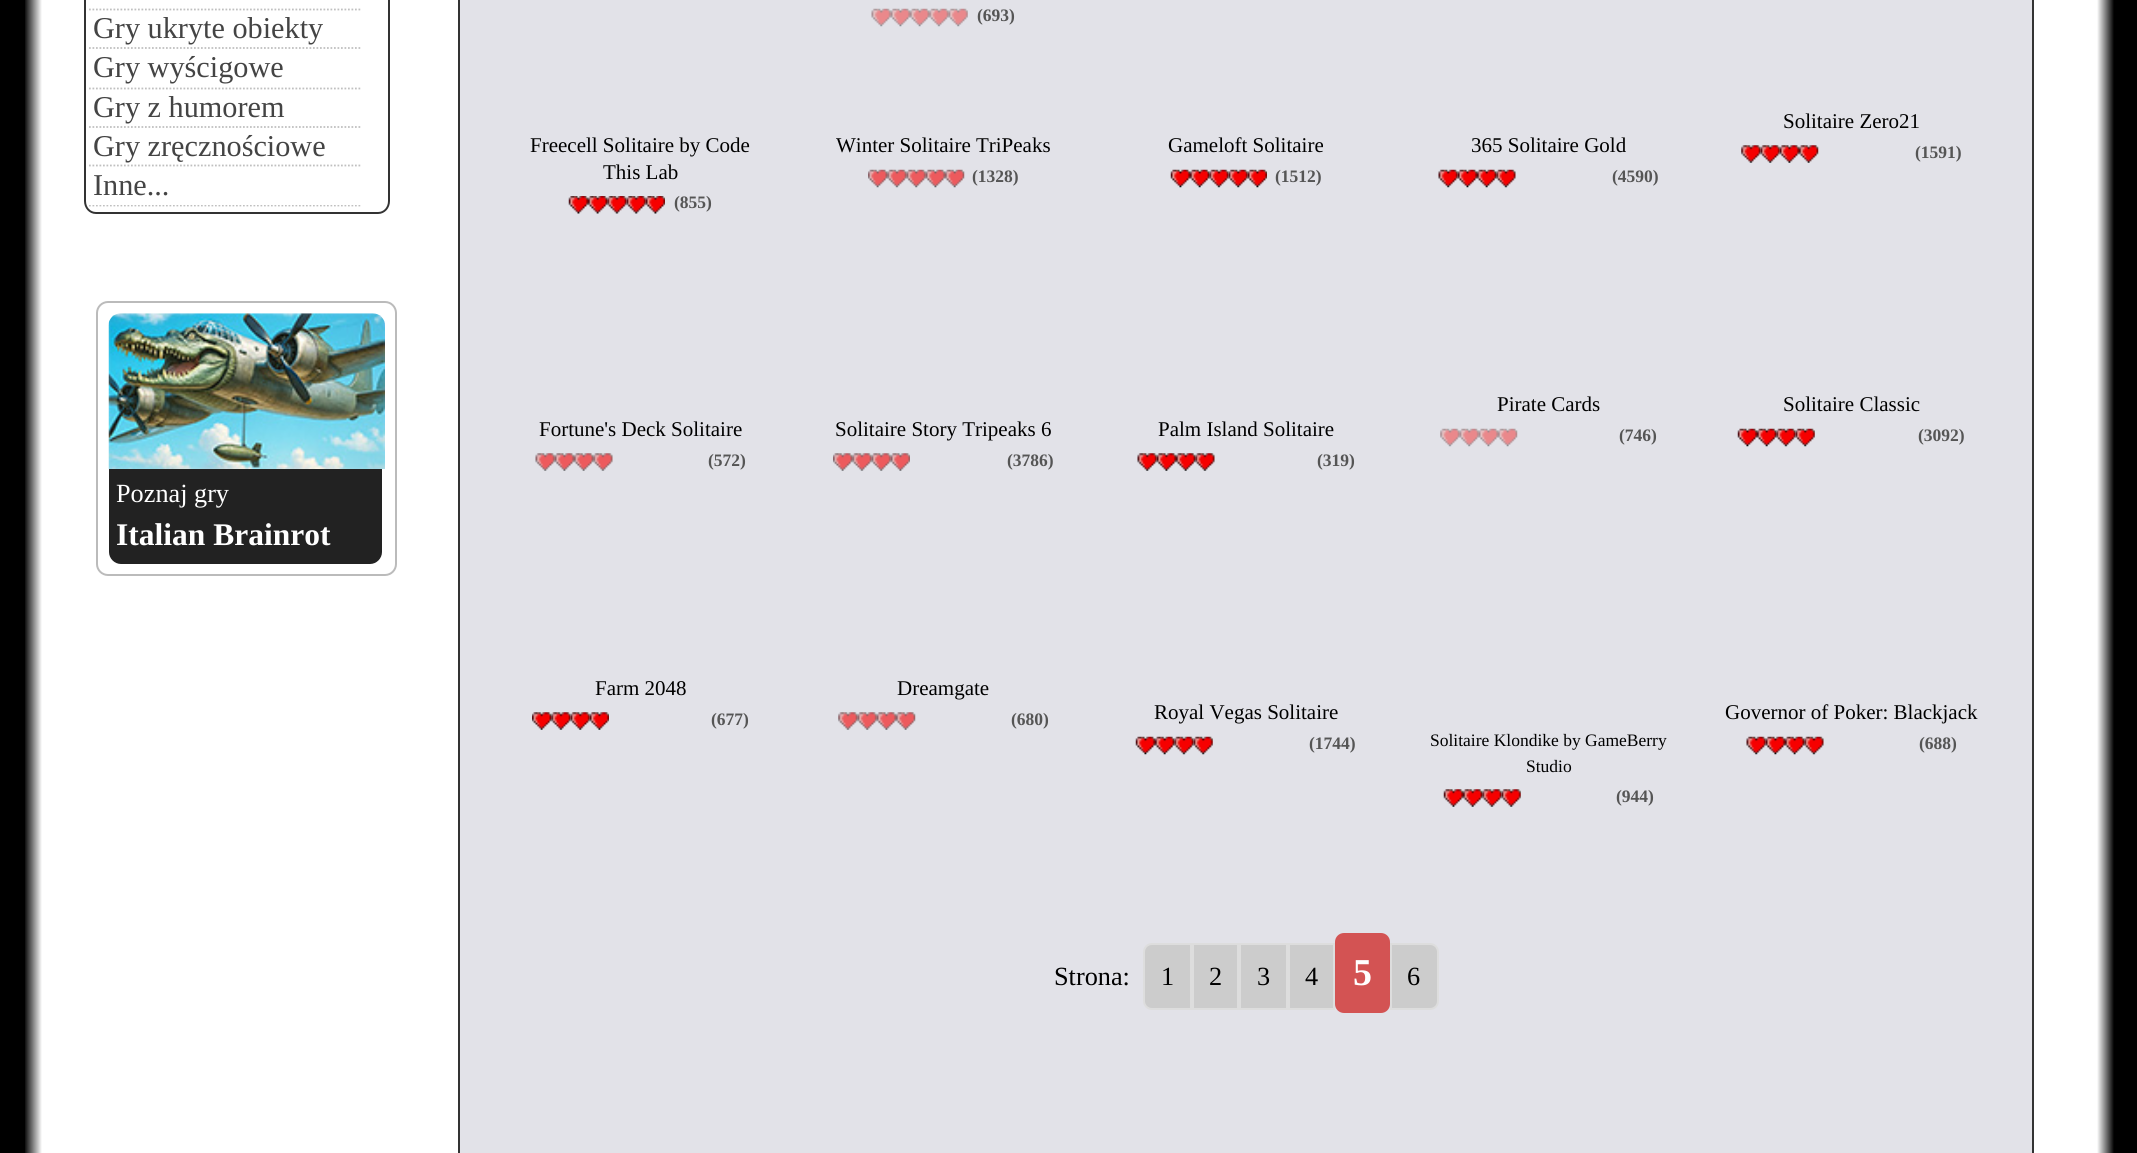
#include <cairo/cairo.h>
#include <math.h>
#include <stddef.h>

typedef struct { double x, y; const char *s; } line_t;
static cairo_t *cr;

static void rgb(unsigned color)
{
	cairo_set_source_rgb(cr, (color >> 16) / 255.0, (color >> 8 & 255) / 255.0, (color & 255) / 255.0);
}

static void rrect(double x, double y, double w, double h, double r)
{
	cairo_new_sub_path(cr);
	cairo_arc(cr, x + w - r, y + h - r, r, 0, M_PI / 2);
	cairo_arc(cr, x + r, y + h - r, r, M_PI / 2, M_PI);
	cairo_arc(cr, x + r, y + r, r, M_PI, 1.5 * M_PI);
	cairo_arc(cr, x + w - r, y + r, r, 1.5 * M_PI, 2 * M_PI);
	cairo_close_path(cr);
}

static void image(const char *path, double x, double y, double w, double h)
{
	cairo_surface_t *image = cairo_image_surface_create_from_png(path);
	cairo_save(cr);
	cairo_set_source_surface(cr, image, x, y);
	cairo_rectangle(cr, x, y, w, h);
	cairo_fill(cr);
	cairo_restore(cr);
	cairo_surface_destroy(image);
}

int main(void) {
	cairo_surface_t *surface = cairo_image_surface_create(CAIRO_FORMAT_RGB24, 2137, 1153);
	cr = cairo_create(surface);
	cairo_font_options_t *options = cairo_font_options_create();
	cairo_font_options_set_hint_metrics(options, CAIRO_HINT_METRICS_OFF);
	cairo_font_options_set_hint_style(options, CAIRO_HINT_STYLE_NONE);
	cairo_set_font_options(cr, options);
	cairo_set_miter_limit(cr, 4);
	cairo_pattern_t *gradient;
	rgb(0x000000);
	cairo_paint(cr);
	gradient = cairo_pattern_create_linear(24, 584, 42, 584);
	cairo_pattern_add_color_stop_rgba(gradient, 0, 0, 0, 0, 1);
	cairo_pattern_add_color_stop_rgba(gradient, 1, 1, 1, 1, 1);
	cairo_set_source(cr, gradient);
	cairo_pattern_destroy(gradient);
	cairo_rectangle(cr, 25, 0, 17, 1153);
	cairo_fill(cr);
	rgb(0xffffff);
	cairo_rectangle(cr, 42, 0, 2055, 1153);
	cairo_fill(cr);
	rgb(0x333333);
	cairo_set_fill_rule(cr, CAIRO_FILL_RULE_EVEN_ODD);
	cairo_new_path(cr);
	cairo_move_to(cr, 84, -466);
	cairo_line_to(cr, 390, -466);
	cairo_line_to(cr, 390, 201);
	cairo_curve_to(cr, 390, 208, 385, 214, 378, 214);
	cairo_line_to(cr, 96, 214);
	cairo_curve_to(cr, 89, 214, 84, 208, 84, 201);
	cairo_close_path(cr);
	cairo_move_to(cr, 86, -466);
	cairo_line_to(cr, 388, -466);
	cairo_line_to(cr, 388, 201);
	cairo_curve_to(cr, 388, 207, 384, 212, 378, 212);
	cairo_line_to(cr, 96, 212);
	cairo_curve_to(cr, 90, 212, 86, 207, 86, 201);
	cairo_close_path(cr);
	cairo_fill(cr);
	cairo_new_path(cr);
	cairo_move_to(cr, 89, 205.5);
	cairo_line_to(cr, 360.5, 205.5);
	rgb(0xc0c0c0);
	cairo_set_line_width(cr, 1.8);
	cairo_set_dash(cr, (double[]){1.75, 1.75}, 2, 0);
	cairo_stroke(cr);
	cairo_new_path(cr);
	cairo_move_to(cr, 89, 9.5);
	cairo_line_to(cr, 360.5, 9.5);
	cairo_stroke(cr);
	cairo_new_path(cr);
	cairo_move_to(cr, 89, 48);
	cairo_line_to(cr, 360.5, 48);
	cairo_stroke(cr);
	cairo_new_path(cr);
	cairo_move_to(cr, 89, 88.5);
	cairo_line_to(cr, 360.5, 88.5);
	cairo_stroke(cr);
	cairo_new_path(cr);
	cairo_move_to(cr, 89, 127);
	cairo_line_to(cr, 360.5, 127);
	cairo_stroke(cr);
	rgb(0xffffff);
	cairo_rectangle(cr, 89, 204, 272, 1);
	cairo_fill(cr);
	cairo_new_path(cr);
	cairo_move_to(cr, 89, 165.5);
	cairo_line_to(cr, 360.5, 165.5);
	rgb(0xc0c0c0);
	cairo_stroke(cr);
	rrect(97, 302, 299, 273, 11);
	rgb(0xbbbbbb);
	cairo_set_line_width(cr, 2);
	cairo_set_dash(cr, NULL, 0, 0);
	cairo_stroke(cr);
	image("img/1.png", 108, 313, 277, 156);
	rgb(0x222222);
	cairo_new_path(cr);
	cairo_move_to(cr, 109, 469);
	cairo_line_to(cr, 382, 469);
	cairo_line_to(cr, 382, 552);
	cairo_curve_to(cr, 382, 558.5, 376.5, 564, 370, 564);
	cairo_line_to(cr, 121, 564);
	cairo_curve_to(cr, 114.5, 564, 109, 558.5, 109, 552);
	cairo_close_path(cr);
	cairo_fill(cr);
	rgb(0xe2e2e8);
	cairo_rectangle(cr, 460, 0, 1572, 1153);
	cairo_fill(cr);
	rgb(0x333333);
	cairo_new_path(cr);
	cairo_move_to(cr, 458, -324);
	cairo_line_to(cr, 2034, -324);
	cairo_line_to(cr, 2034, 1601);
	cairo_curve_to(cr, 2034, 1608, 2028, 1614, 2021, 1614);
	cairo_line_to(cr, 471, 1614);
	cairo_curve_to(cr, 464, 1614, 458, 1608, 458, 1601);
	cairo_close_path(cr);
	cairo_move_to(cr, 460, -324);
	cairo_line_to(cr, 2032, -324);
	cairo_line_to(cr, 2032, 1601);
	cairo_curve_to(cr, 2032, 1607, 2027, 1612, 2021, 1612);
	cairo_line_to(cr, 471, 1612);
	cairo_curve_to(cr, 465, 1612, 460, 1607, 460, 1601);
	cairo_close_path(cr);
	cairo_fill(cr);
	image("img/2.png", 871, 8, 20, 19);
	image("img/3.png", 890, 8, 20, 19);
	image("img/4.png", 910, 8, 20, 19);
	image("img/5.png", 929, 8, 20, 19);
	image("img/6.png", 948, 8, 20, 19);
	image("img/7.png", 568, 196, 20, 18);
	image("img/8.png", 588, 196, 20, 18);
	image("img/9.png", 607, 196, 20, 18);
	image("img/10.png", 626, 196, 20, 18);
	image("img/11.png", 645, 196, 20, 18);
	image("img/12.png", 868, 169, 20, 19);
	image("img/13.png", 887, 169, 20, 19);
	image("img/14.png", 906, 169, 20, 19);
	image("img/15.png", 925, 169, 20, 19);
	image("img/16.png", 945, 169, 20, 19);
	image("img/17.png", 1170, 169, 20, 19);
	image("img/18.png", 1190, 169, 20, 19);
	image("img/19.png", 1209, 169, 20, 19);
	image("img/20.png", 1228, 169, 20, 19);
	image("img/21.png", 1247, 169, 20, 19);
	image("img/22.png", 1438, 169, 20, 19);
	image("img/23.png", 1457, 169, 20, 19);
	image("img/18.png", 1477, 169, 20, 19);
	image("img/24.png", 1496, 169, 20, 19);
	image("img/25.png", 1741, 145, 20, 18);
	image("img/26.png", 1760, 145, 20, 18);
	image("img/27.png", 1779, 145, 20, 18);
	image("img/28.png", 1799, 145, 20, 18);
	image("img/29.png", 535, 453, 20, 18);
	image("img/30.png", 554, 453, 20, 18);
	image("img/31.png", 574, 453, 20, 18);
	image("img/32.png", 593, 453, 20, 18);
	image("img/31.png", 833, 453, 20, 18);
	image("img/33.png", 852, 453, 20, 18);
	image("img/34.png", 871, 453, 20, 18);
	image("img/30.png", 890, 453, 20, 18);
	image("img/35.png", 1137, 453, 20, 18);
	image("img/27.png", 1156, 453, 20, 18);
	image("img/36.png", 1176, 453, 20, 18);
	image("img/37.png", 1195, 453, 20, 18);
	image("img/38.png", 1440, 428, 20, 19);
	image("img/39.png", 1459, 428, 20, 19);
	image("img/3.png", 1478, 428, 20, 19);
	image("img/4.png", 1498, 428, 20, 19);
	image("img/17.png", 1737, 428, 20, 19);
	image("img/18.png", 1757, 428, 20, 19);
	image("img/19.png", 1776, 428, 20, 19);
	image("img/20.png", 1795, 428, 20, 19);
	image("img/28.png", 532, 712, 20, 18);
	image("img/40.png", 551, 712, 20, 18);
	image("img/41.png", 570, 712, 20, 18);
	image("img/27.png", 589, 712, 20, 18);
	image("img/42.png", 838, 712, 20, 18);
	image("img/43.png", 857, 712, 20, 18);
	image("img/30.png", 876, 712, 20, 18);
	image("img/31.png", 896, 712, 20, 18);
	image("img/17.png", 1135, 736, 20, 19);
	image("img/18.png", 1155, 736, 20, 19);
	image("img/19.png", 1174, 736, 20, 19);
	image("img/20.png", 1193, 736, 20, 19);
	image("img/44.png", 1443, 789, 20, 18);
	image("img/36.png", 1463, 789, 20, 18);
	image("img/37.png", 1482, 789, 20, 18);
	image("img/26.png", 1501, 789, 20, 18);
	image("img/45.png", 1746, 736, 20, 19);
	image("img/21.png", 1765, 736, 20, 19);
	image("img/46.png", 1785, 736, 20, 19);
	image("img/19.png", 1804, 736, 20, 19);
	rgb(0xcccccc);
	cairo_new_path(cr);
	cairo_move_to(cr, 1152, 944);
	cairo_line_to(cr, 1191, 944);
	cairo_line_to(cr, 1191, 1009);
	cairo_line_to(cr, 1152, 1009);
	cairo_curve_to(cr, 1147.5, 1009, 1144, 1005.5, 1144, 1001);
	cairo_line_to(cr, 1144, 952);
	cairo_curve_to(cr, 1144, 947.5, 1147.5, 944, 1152, 944);
	cairo_close_path(cr);
	cairo_fill_preserve(cr);
	rgb(0xdddddd);
	cairo_stroke(cr);
	rgb(0xcccccc);
	cairo_rectangle(cr, 1193, 944, 45, 65);
	cairo_fill_preserve(cr);
	rgb(0xdddddd);
	cairo_stroke(cr);
	rgb(0xcccccc);
	cairo_rectangle(cr, 1240, 944, 47, 65);
	cairo_fill_preserve(cr);
	rgb(0xdddddd);
	cairo_stroke(cr);
	rgb(0xcccccc);
	cairo_rectangle(cr, 1289, 944, 45, 65);
	cairo_fill_preserve(cr);
	rgb(0xdddddd);
	cairo_stroke(cr);
	rgb(0xd35353);
	rrect(1336, 934, 53, 78, 8);
	cairo_fill_preserve(cr);
	cairo_stroke(cr);
	rgb(0xcccccc);
	cairo_new_path(cr);
	cairo_move_to(cr, 1391, 944);
	cairo_line_to(cr, 1430, 944);
	cairo_curve_to(cr, 1434.5, 944, 1438, 947.5, 1438, 952);
	cairo_line_to(cr, 1438, 1001);
	cairo_curve_to(cr, 1438, 1005.5, 1434.5, 1009, 1430, 1009);
	cairo_line_to(cr, 1391, 1009);
	cairo_close_path(cr);
	cairo_fill_preserve(cr);
	rgb(0xdddddd);
	cairo_stroke(cr);
	gradient = cairo_pattern_create_linear(2097, 584, 2114, 584);
	cairo_pattern_add_color_stop_rgba(gradient, 0, 1, 1, 1, 1);
	cairo_pattern_add_color_stop_rgba(gradient, 1, 0, 0, 0, 1);
	cairo_set_source(cr, gradient);
	cairo_pattern_destroy(gradient);
	cairo_rectangle(cr, 2097, 0, 17, 1153);
	cairo_fill(cr);
	cairo_select_font_face(cr, "Liberation Serif", CAIRO_FONT_SLANT_NORMAL, CAIRO_FONT_WEIGHT_NORMAL);
	cairo_set_font_size(cr, 30.25);
	rgb(0x444444);
	{
		static const line_t items[] = {
			{93, 38, "Gry ukryte obiekty"},
			{93, 77, "Gry wyścigowe"},
			{93, 117, "Gry z humorem"},
			{93, 156, "Gry zręcznościowe"},
			{93, 195, "Inne..."},
		};
		for (size_t i = 0; i < sizeof items / sizeof *items; i++) {
			cairo_move_to(cr, items[i].x, items[i].y);
			cairo_show_text(cr, items[i].s);
		}
	}
	cairo_set_font_size(cr, 26.25);
	rgb(0xffffff);
	cairo_move_to(cr, 116, 502);
	cairo_show_text(cr, "Poznaj gry");
	cairo_select_font_face(cr, "Liberation Serif", CAIRO_FONT_SLANT_NORMAL, CAIRO_FONT_WEIGHT_BOLD);
	cairo_set_font_size(cr, 31.5);
	cairo_move_to(cr, 116, 545);
	cairo_show_text(cr, "Italian Brainrot");
	cairo_set_font_size(cr, 17.5);
	rgb(0x555555);
	cairo_move_to(cr, 977, 21);
	cairo_show_text(cr, "(693)");
	cairo_select_font_face(cr, "Liberation Serif", CAIRO_FONT_SLANT_NORMAL, CAIRO_FONT_WEIGHT_NORMAL);
	cairo_set_font_size(cr, 21);
	rgb(0x000000);
	cairo_move_to(cr, 530, 152);
	cairo_show_text(cr, "Freecell Solitaire by Code");
	cairo_move_to(cr, 603, 179);
	cairo_show_text(cr, "This Lab");
	cairo_select_font_face(cr, "Liberation Serif", CAIRO_FONT_SLANT_NORMAL, CAIRO_FONT_WEIGHT_BOLD);
	cairo_set_font_size(cr, 17.5);
	rgb(0x555555);
	cairo_move_to(cr, 674, 208);
	cairo_show_text(cr, "(855)");
	cairo_select_font_face(cr, "Liberation Serif", CAIRO_FONT_SLANT_NORMAL, CAIRO_FONT_WEIGHT_NORMAL);
	cairo_set_font_size(cr, 21);
	rgb(0x000000);
	cairo_move_to(cr, 836, 152);
	cairo_show_text(cr, "Winter Solitaire TriPeaks");
	cairo_select_font_face(cr, "Liberation Serif", CAIRO_FONT_SLANT_NORMAL, CAIRO_FONT_WEIGHT_BOLD);
	cairo_set_font_size(cr, 17.5);
	rgb(0x555555);
	cairo_move_to(cr, 972, 182);
	cairo_show_text(cr, "(1328)");
	cairo_select_font_face(cr, "Liberation Serif", CAIRO_FONT_SLANT_NORMAL, CAIRO_FONT_WEIGHT_NORMAL);
	cairo_set_font_size(cr, 21);
	rgb(0x000000);
	cairo_move_to(cr, 1168, 152);
	cairo_show_text(cr, "Gameloft Solitaire");
	cairo_select_font_face(cr, "Liberation Serif", CAIRO_FONT_SLANT_NORMAL, CAIRO_FONT_WEIGHT_BOLD);
	cairo_set_font_size(cr, 17.5);
	rgb(0x555555);
	cairo_move_to(cr, 1275, 182);
	cairo_show_text(cr, "(1512)");
	cairo_select_font_face(cr, "Liberation Serif", CAIRO_FONT_SLANT_NORMAL, CAIRO_FONT_WEIGHT_NORMAL);
	cairo_set_font_size(cr, 21);
	rgb(0x000000);
	cairo_move_to(cr, 1471, 152);
	cairo_show_text(cr, "365 Solitaire Gold");
	cairo_select_font_face(cr, "Liberation Serif", CAIRO_FONT_SLANT_NORMAL, CAIRO_FONT_WEIGHT_BOLD);
	cairo_set_font_size(cr, 17.5);
	rgb(0x555555);
	cairo_move_to(cr, 1612, 182);
	cairo_show_text(cr, "(4590)");
	cairo_select_font_face(cr, "Liberation Serif", CAIRO_FONT_SLANT_NORMAL, CAIRO_FONT_WEIGHT_NORMAL);
	cairo_set_font_size(cr, 21);
	rgb(0x000000);
	cairo_move_to(cr, 1783, 128);
	cairo_show_text(cr, "Solitaire Zero21");
	cairo_select_font_face(cr, "Liberation Serif", CAIRO_FONT_SLANT_NORMAL, CAIRO_FONT_WEIGHT_BOLD);
	cairo_set_font_size(cr, 17.5);
	rgb(0x555555);
	cairo_move_to(cr, 1915, 158);
	cairo_show_text(cr, "(1591)");
	cairo_select_font_face(cr, "Liberation Serif", CAIRO_FONT_SLANT_NORMAL, CAIRO_FONT_WEIGHT_NORMAL);
	cairo_set_font_size(cr, 21);
	rgb(0x000000);
	cairo_move_to(cr, 539, 436);
	cairo_show_text(cr, "Fortune's Deck Solitaire");
	cairo_select_font_face(cr, "Liberation Serif", CAIRO_FONT_SLANT_NORMAL, CAIRO_FONT_WEIGHT_BOLD);
	cairo_set_font_size(cr, 17.5);
	rgb(0x555555);
	cairo_move_to(cr, 708, 466);
	cairo_show_text(cr, "(572)");
	cairo_select_font_face(cr, "Liberation Serif", CAIRO_FONT_SLANT_NORMAL, CAIRO_FONT_WEIGHT_NORMAL);
	cairo_set_font_size(cr, 21);
	rgb(0x000000);
	cairo_move_to(cr, 835, 436);
	cairo_show_text(cr, "Solitaire Story Tripeaks 6");
	cairo_select_font_face(cr, "Liberation Serif", CAIRO_FONT_SLANT_NORMAL, CAIRO_FONT_WEIGHT_BOLD);
	cairo_set_font_size(cr, 17.5);
	rgb(0x555555);
	cairo_move_to(cr, 1007, 466);
	cairo_show_text(cr, "(3786)");
	cairo_select_font_face(cr, "Liberation Serif", CAIRO_FONT_SLANT_NORMAL, CAIRO_FONT_WEIGHT_NORMAL);
	cairo_set_font_size(cr, 21);
	rgb(0x000000);
	cairo_move_to(cr, 1158, 436);
	cairo_show_text(cr, "Palm Island Solitaire");
	cairo_select_font_face(cr, "Liberation Serif", CAIRO_FONT_SLANT_NORMAL, CAIRO_FONT_WEIGHT_BOLD);
	cairo_set_font_size(cr, 17.5);
	rgb(0x555555);
	cairo_move_to(cr, 1317, 466);
	cairo_show_text(cr, "(319)");
	cairo_select_font_face(cr, "Liberation Serif", CAIRO_FONT_SLANT_NORMAL, CAIRO_FONT_WEIGHT_NORMAL);
	cairo_set_font_size(cr, 21);
	rgb(0x000000);
	cairo_move_to(cr, 1497, 411);
	cairo_show_text(cr, "Pirate Cards");
	cairo_select_font_face(cr, "Liberation Serif", CAIRO_FONT_SLANT_NORMAL, CAIRO_FONT_WEIGHT_BOLD);
	cairo_set_font_size(cr, 17.5);
	rgb(0x555555);
	cairo_move_to(cr, 1619, 441);
	cairo_show_text(cr, "(746)");
	cairo_select_font_face(cr, "Liberation Serif", CAIRO_FONT_SLANT_NORMAL, CAIRO_FONT_WEIGHT_NORMAL);
	cairo_set_font_size(cr, 21);
	rgb(0x000000);
	cairo_move_to(cr, 1783, 411);
	cairo_show_text(cr, "Solitaire Classic");
	cairo_select_font_face(cr, "Liberation Serif", CAIRO_FONT_SLANT_NORMAL, CAIRO_FONT_WEIGHT_BOLD);
	cairo_set_font_size(cr, 17.5);
	rgb(0x555555);
	cairo_move_to(cr, 1918, 441);
	cairo_show_text(cr, "(3092)");
	cairo_select_font_face(cr, "Liberation Serif", CAIRO_FONT_SLANT_NORMAL, CAIRO_FONT_WEIGHT_NORMAL);
	cairo_set_font_size(cr, 21);
	rgb(0x000000);
	cairo_move_to(cr, 595, 695);
	cairo_show_text(cr, "Farm 2048");
	cairo_select_font_face(cr, "Liberation Serif", CAIRO_FONT_SLANT_NORMAL, CAIRO_FONT_WEIGHT_BOLD);
	cairo_set_font_size(cr, 17.5);
	rgb(0x555555);
	cairo_move_to(cr, 711, 725);
	cairo_show_text(cr, "(677)");
	cairo_select_font_face(cr, "Liberation Serif", CAIRO_FONT_SLANT_NORMAL, CAIRO_FONT_WEIGHT_NORMAL);
	cairo_set_font_size(cr, 21);
	rgb(0x000000);
	cairo_move_to(cr, 897, 695);
	cairo_show_text(cr, "Dreamgate");
	cairo_select_font_face(cr, "Liberation Serif", CAIRO_FONT_SLANT_NORMAL, CAIRO_FONT_WEIGHT_BOLD);
	cairo_set_font_size(cr, 17.5);
	rgb(0x555555);
	cairo_move_to(cr, 1011, 725);
	cairo_show_text(cr, "(680)");
	cairo_select_font_face(cr, "Liberation Serif", CAIRO_FONT_SLANT_NORMAL, CAIRO_FONT_WEIGHT_NORMAL);
	cairo_set_font_size(cr, 21);
	rgb(0x000000);
	cairo_move_to(cr, 1154, 719);
	cairo_show_text(cr, "Royal Vegas Solitaire");
	cairo_select_font_face(cr, "Liberation Serif", CAIRO_FONT_SLANT_NORMAL, CAIRO_FONT_WEIGHT_BOLD);
	cairo_set_font_size(cr, 17.5);
	rgb(0x555555);
	cairo_move_to(cr, 1309, 749);
	cairo_show_text(cr, "(1744)");
	cairo_select_font_face(cr, "Liberation Serif", CAIRO_FONT_SLANT_NORMAL, CAIRO_FONT_WEIGHT_NORMAL);
	rgb(0x000000);
	cairo_move_to(cr, 1430, 746);
	cairo_show_text(cr, "Solitaire Klondike by GameBerry");
	cairo_move_to(cr, 1526, 772);
	cairo_show_text(cr, "Studio");
	cairo_select_font_face(cr, "Liberation Serif", CAIRO_FONT_SLANT_NORMAL, CAIRO_FONT_WEIGHT_BOLD);
	rgb(0x555555);
	cairo_move_to(cr, 1616, 802);
	cairo_show_text(cr, "(944)");
	cairo_select_font_face(cr, "Liberation Serif", CAIRO_FONT_SLANT_NORMAL, CAIRO_FONT_WEIGHT_NORMAL);
	cairo_set_font_size(cr, 21);
	rgb(0x000000);
	cairo_move_to(cr, 1725, 719);
	cairo_show_text(cr, "Governor of Poker: Blackjack");
	cairo_select_font_face(cr, "Liberation Serif", CAIRO_FONT_SLANT_NORMAL, CAIRO_FONT_WEIGHT_BOLD);
	cairo_set_font_size(cr, 17.5);
	rgb(0x555555);
	cairo_move_to(cr, 1919, 749);
	cairo_show_text(cr, "(688)");
	cairo_select_font_face(cr, "Liberation Serif", CAIRO_FONT_SLANT_NORMAL, CAIRO_FONT_WEIGHT_NORMAL);
	cairo_set_font_size(cr, 26.25);
	rgb(0x000000);
	{
		static const line_t items[] = {
			{1054, 985, "Strona:"},
			{1161, 985, "1"},
			{1209, 985, "2"},
			{1257, 985, "3"},
			{1305, 985, "4"},
		};
		for (size_t i = 0; i < sizeof items / sizeof *items; i++) {
			cairo_move_to(cr, items[i].x, items[i].y);
			cairo_show_text(cr, items[i].s);
		}
	}
	cairo_select_font_face(cr, "Liberation Serif", CAIRO_FONT_SLANT_NORMAL, CAIRO_FONT_WEIGHT_BOLD);
	cairo_set_font_size(cr, 38);
	rgb(0xffffff);
	cairo_move_to(cr, 1353, 985);
	cairo_show_text(cr, "5");
	cairo_select_font_face(cr, "Liberation Serif", CAIRO_FONT_SLANT_NORMAL, CAIRO_FONT_WEIGHT_NORMAL);
	cairo_set_font_size(cr, 26.25);
	rgb(0x000000);
	cairo_move_to(cr, 1407, 985);
	cairo_show_text(cr, "6");
	cairo_surface_write_to_png(surface, "page.png");
	cairo_font_options_destroy(options);
	cairo_destroy(cr);
	cairo_surface_destroy(surface);
	return 0;
}
